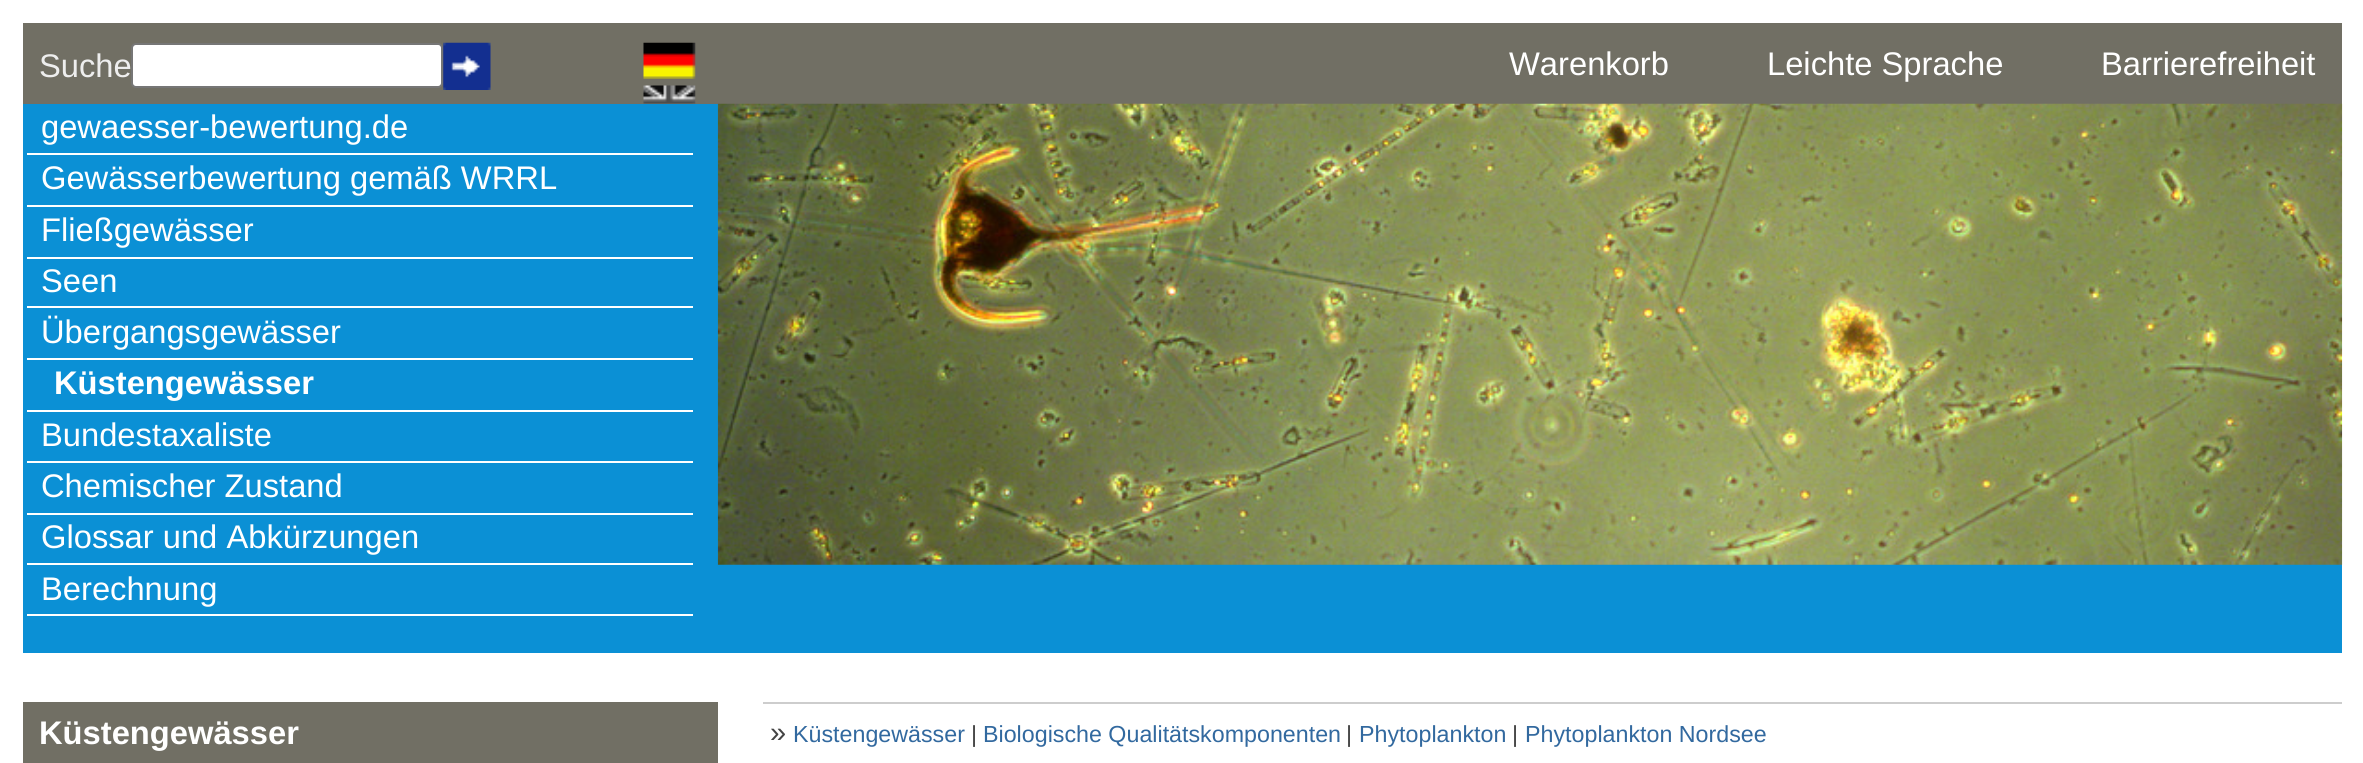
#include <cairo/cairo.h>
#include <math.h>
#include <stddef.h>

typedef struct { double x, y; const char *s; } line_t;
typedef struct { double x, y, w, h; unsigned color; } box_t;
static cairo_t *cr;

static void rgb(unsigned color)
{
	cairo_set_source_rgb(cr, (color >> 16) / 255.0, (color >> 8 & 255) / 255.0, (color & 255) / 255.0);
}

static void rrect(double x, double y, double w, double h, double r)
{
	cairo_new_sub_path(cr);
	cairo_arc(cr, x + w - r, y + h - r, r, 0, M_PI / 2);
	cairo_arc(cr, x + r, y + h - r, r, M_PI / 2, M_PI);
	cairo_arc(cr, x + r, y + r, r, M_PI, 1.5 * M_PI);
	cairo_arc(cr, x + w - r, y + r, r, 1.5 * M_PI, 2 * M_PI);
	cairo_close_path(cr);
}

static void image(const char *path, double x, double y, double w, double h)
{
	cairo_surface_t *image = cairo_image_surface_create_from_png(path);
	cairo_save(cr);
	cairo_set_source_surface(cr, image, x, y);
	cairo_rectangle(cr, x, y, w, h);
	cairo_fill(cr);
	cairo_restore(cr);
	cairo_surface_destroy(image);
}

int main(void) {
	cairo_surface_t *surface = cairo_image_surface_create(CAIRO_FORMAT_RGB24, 2363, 763);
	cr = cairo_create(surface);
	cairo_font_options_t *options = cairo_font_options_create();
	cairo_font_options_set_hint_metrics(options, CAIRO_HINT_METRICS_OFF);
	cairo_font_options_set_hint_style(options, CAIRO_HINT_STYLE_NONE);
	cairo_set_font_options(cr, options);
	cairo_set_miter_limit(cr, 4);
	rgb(0xffffff);
	cairo_paint(cr);
	rgb(0x716f64);
	cairo_rectangle(cr, 23, 23, 2319, 81);
	cairo_fill(cr);
	rgb(0xffffff);
	rrect(132, 44, 310, 43, 4);
	cairo_fill_preserve(cr);
	rgb(0x767676);
	cairo_stroke(cr);
	image("img/1.png", 443, 42, 48, 48);
	image("img/2.png", 643, 42, 53, 37);
	image("img/3.png", 643, 85, 53, 19);
	{
		static const box_t items[] = {
			{23, 104, 2319, 549, 0x0b90d5},
			{27, 153, 666, 2, 0xffffff},
			{27, 205, 666, 2, 0xffffff},
			{27, 257, 666, 2, 0xffffff},
			{27, 306, 666, 2, 0xffffff},
			{27, 358, 666, 2, 0xffffff},
			{27, 410, 666, 2, 0xffffff},
			{27, 461, 666, 2, 0xffffff},
			{27, 513, 666, 2, 0xffffff},
			{27, 563, 666, 2, 0xffffff},
			{27, 614, 666, 2, 0xffffff},
		};
		for (size_t i = 0; i < sizeof items / sizeof *items; i++) {
			rgb(items[i].color);
			cairo_rectangle(cr, items[i].x, items[i].y, items[i].w, items[i].h);
			cairo_fill(cr);
		}
	}
	image("img/4.png", 717, 103, 1626, 462);
	rgb(0x716f64);
	cairo_rectangle(cr, 23, 702, 695, 61);
	cairo_fill(cr);
	rgb(0xcdcdcd);
	cairo_rectangle(cr, 763, 702, 1579, 2);
	cairo_fill(cr);
	cairo_select_font_face(cr, "Liberation Sans", CAIRO_FONT_SLANT_NORMAL, CAIRO_FONT_WEIGHT_NORMAL);
	cairo_set_font_size(cr, 32.7);
	rgb(0xeeeeee);
	cairo_move_to(cr, 39, 77);
	cairo_show_text(cr, "Suche");
	rgb(0xffffff);
	{
		static const line_t items[] = {
			{1509, 75, "Warenkorb"},
			{1767, 75, "Leichte Sprache"},
			{2101, 75, "Barrierefreiheit"},
			{41, 138, "gewaesser-bewertung.de"},
			{41, 189, "Gewässerbewertung gemäß WRRL"},
			{41, 241, "Fließgewässer"},
			{41, 292, "Seen"},
			{41, 343, "Übergangsgewässer"},
		};
		for (size_t i = 0; i < sizeof items / sizeof *items; i++) {
			cairo_move_to(cr, items[i].x, items[i].y);
			cairo_show_text(cr, items[i].s);
		}
	}
	cairo_select_font_face(cr, "Liberation Sans", CAIRO_FONT_SLANT_NORMAL, CAIRO_FONT_WEIGHT_BOLD);
	cairo_move_to(cr, 54, 394);
	cairo_show_text(cr, "Küstengewässer");
	cairo_select_font_face(cr, "Liberation Sans", CAIRO_FONT_SLANT_NORMAL, CAIRO_FONT_WEIGHT_NORMAL);
	{
		static const line_t items[] = {
			{41, 446, "Bundestaxaliste"},
			{41, 497, "Chemischer Zustand"},
			{41, 548, "Glossar und Abkürzungen"},
			{41, 600, "Berechnung"},
		};
		for (size_t i = 0; i < sizeof items / sizeof *items; i++) {
			cairo_move_to(cr, items[i].x, items[i].y);
			cairo_show_text(cr, items[i].s);
		}
	}
	cairo_select_font_face(cr, "Liberation Sans", CAIRO_FONT_SLANT_NORMAL, CAIRO_FONT_WEIGHT_BOLD);
	cairo_move_to(cr, 39, 744);
	cairo_show_text(cr, "Küstengewässer");
	cairo_select_font_face(cr, "Liberation Sans", CAIRO_FONT_SLANT_NORMAL, CAIRO_FONT_WEIGHT_NORMAL);
	cairo_set_font_size(cr, 29);
	rgb(0x444444);
	cairo_move_to(cr, 770, 742);
	cairo_show_text(cr, "»");
	cairo_set_font_size(cr, 23.25);
	rgb(0x32699f);
	cairo_move_to(cr, 793, 742);
	cairo_show_text(cr, "Küstengewässer");
	rgb(0x444444);
	cairo_move_to(cr, 971, 742);
	cairo_show_text(cr, "|");
	rgb(0x32699f);
	cairo_move_to(cr, 983, 742);
	cairo_show_text(cr, "Biologische Qualitätskomponenten");
	rgb(0x444444);
	cairo_move_to(cr, 1346, 742);
	cairo_show_text(cr, "|");
	rgb(0x32699f);
	cairo_move_to(cr, 1359, 742);
	cairo_show_text(cr, "Phytoplankton");
	rgb(0x444444);
	cairo_move_to(cr, 1512, 742);
	cairo_show_text(cr, "|");
	rgb(0x32699f);
	cairo_move_to(cr, 1525, 742);
	cairo_show_text(cr, "Phytoplankton Nordsee");
	cairo_surface_write_to_png(surface, "page.png");
	cairo_font_options_destroy(options);
	cairo_destroy(cr);
	cairo_surface_destroy(surface);
	return 0;
}
